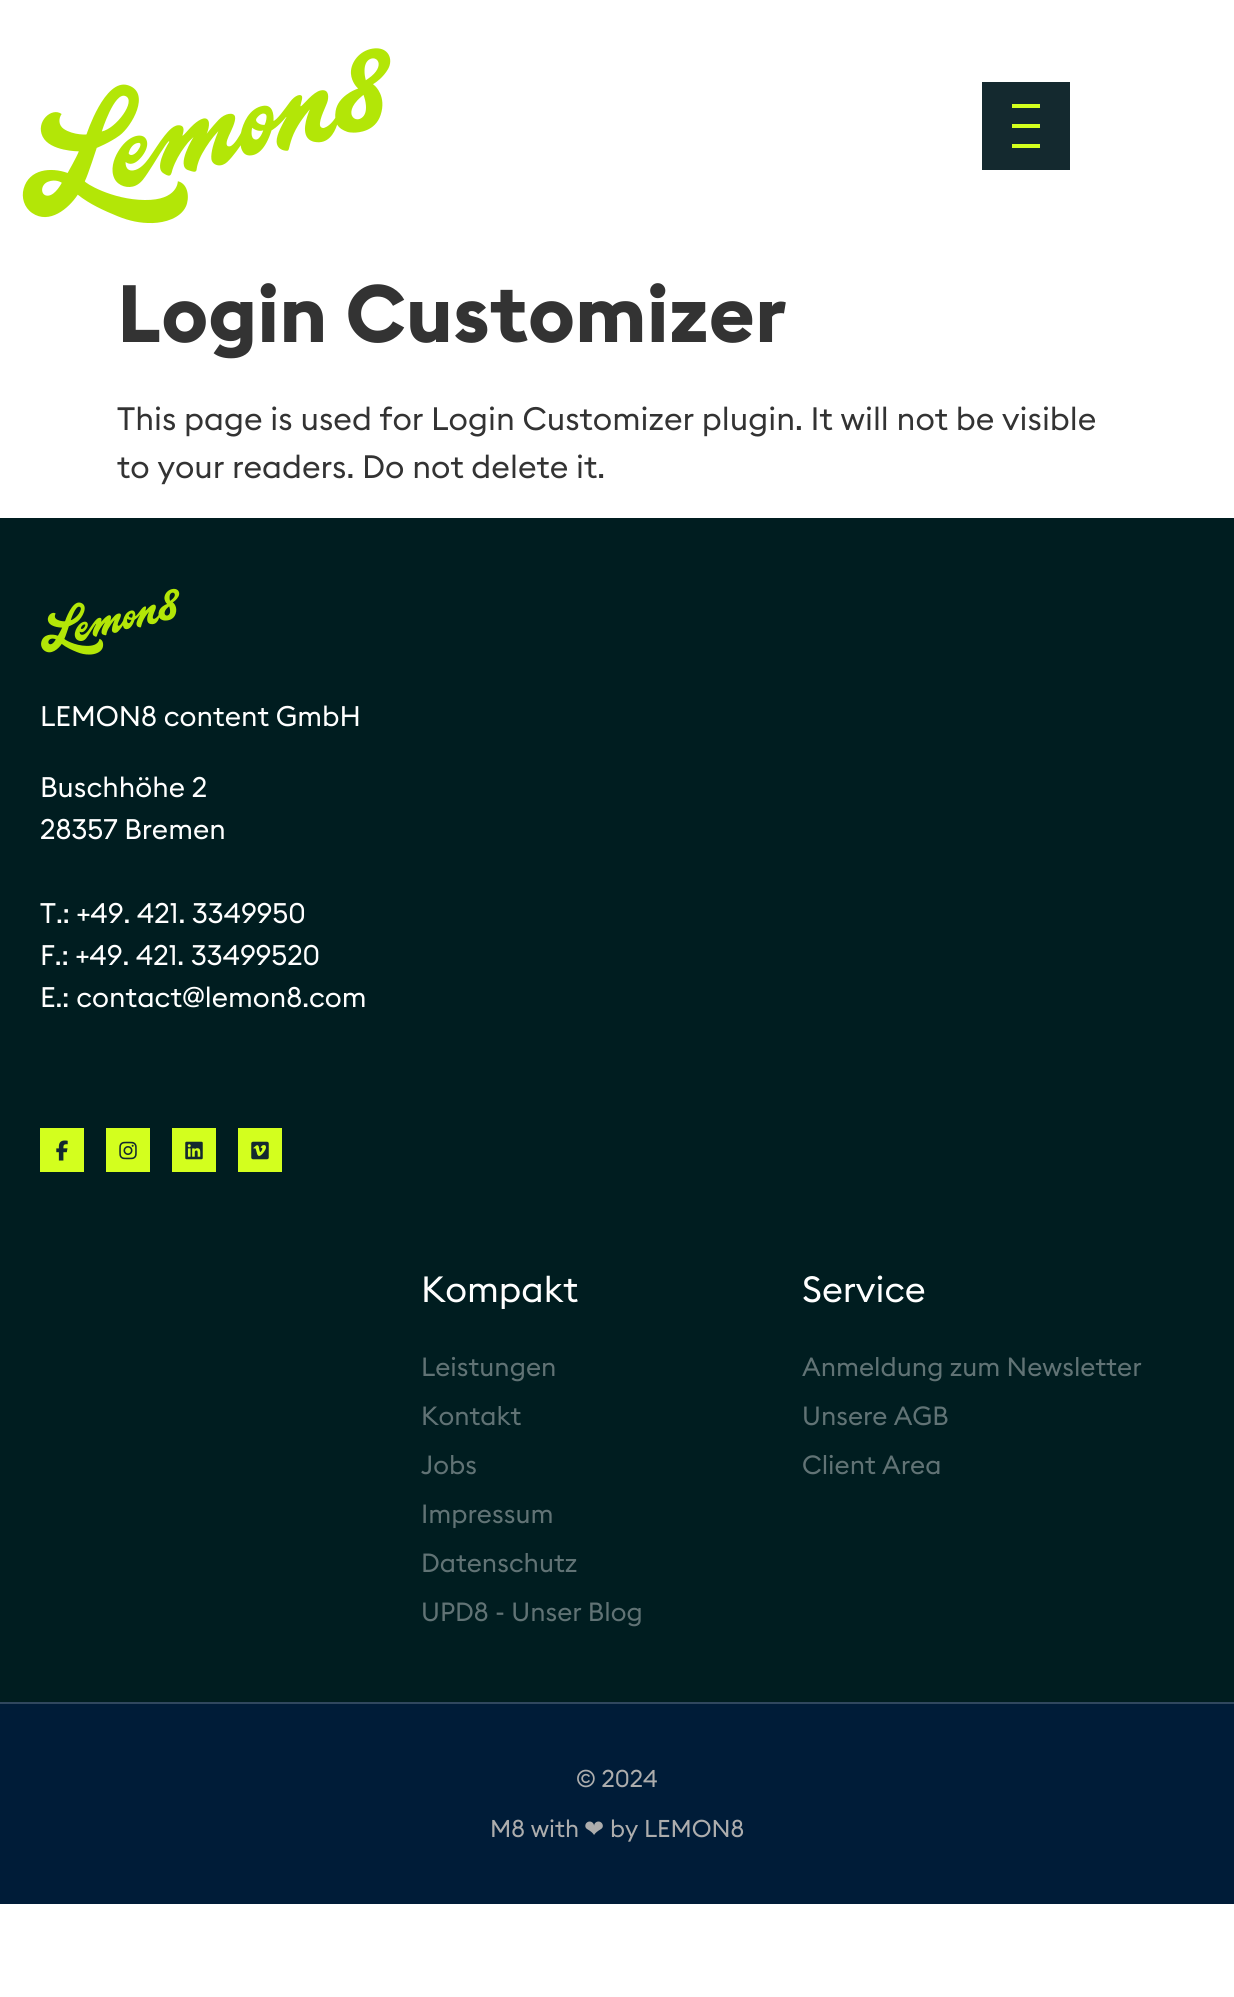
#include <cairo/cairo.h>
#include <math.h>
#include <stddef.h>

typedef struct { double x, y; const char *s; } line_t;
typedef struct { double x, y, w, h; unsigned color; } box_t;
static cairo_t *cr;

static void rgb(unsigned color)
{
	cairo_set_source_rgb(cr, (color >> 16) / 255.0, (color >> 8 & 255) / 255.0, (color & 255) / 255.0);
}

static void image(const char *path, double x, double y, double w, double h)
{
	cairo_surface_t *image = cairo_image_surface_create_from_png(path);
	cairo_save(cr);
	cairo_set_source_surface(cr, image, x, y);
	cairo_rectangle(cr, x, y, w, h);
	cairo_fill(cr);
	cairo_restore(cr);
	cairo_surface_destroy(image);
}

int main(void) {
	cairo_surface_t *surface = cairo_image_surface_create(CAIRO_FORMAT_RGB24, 1234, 1997);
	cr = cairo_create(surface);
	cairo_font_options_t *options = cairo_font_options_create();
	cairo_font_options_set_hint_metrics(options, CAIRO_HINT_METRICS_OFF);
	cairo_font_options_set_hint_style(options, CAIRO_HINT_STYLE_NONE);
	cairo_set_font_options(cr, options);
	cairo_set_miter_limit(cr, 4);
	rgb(0xffffff);
	cairo_paint(cr);
	image("img/1.png", 22, 48, 369, 176);
	{
		static const box_t items[] = {
			{982, 82, 88, 88, 0x14292f},
			{1012, 124, 28, 4, 0xd3ff1e},
			{1012, 104, 28, 4, 0xd3ff1e},
			{1012, 144, 28, 4, 0xd3ff1e},
			{0, 518, 1234, 1184, 0x001d20},
		};
		for (size_t i = 0; i < sizeof items / sizeof *items; i++) {
			rgb(items[i].color);
			cairo_rectangle(cr, items[i].x, items[i].y, items[i].w, items[i].h);
			cairo_fill(cr);
		}
	}
	image("img/2.png", 41, 588, 139, 67);
	rgb(0xd3ff1e);
	cairo_rectangle(cr, 40, 1128, 44, 44);
	cairo_fill(cr);
	image("img/3.png", 56, 1140, 12, 21);
	cairo_rectangle(cr, 106, 1128, 44, 44);
	cairo_fill(cr);
	image("img/4.png", 119, 1141, 18, 19);
	cairo_rectangle(cr, 172, 1128, 44, 44);
	cairo_fill(cr);
	image("img/5.png", 185, 1141, 18, 19);
	cairo_rectangle(cr, 238, 1128, 44, 44);
	cairo_fill(cr);
	image("img/6.png", 251, 1141, 18, 19);
	rgb(0x001c38);
	cairo_rectangle(cr, 0, 1704, 1234, 200);
	cairo_fill(cr);
	rgb(0x30475e);
	cairo_rectangle(cr, 0, 1702, 1234, 2);
	cairo_fill(cr);
	cairo_select_font_face(cr, "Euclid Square", CAIRO_FONT_SLANT_NORMAL, CAIRO_FONT_WEIGHT_BOLD);
	cairo_set_font_size(cr, 80);
	rgb(0x333333);
	cairo_move_to(cr, 117, 342);
	cairo_show_text(cr, "Login Customizer");
	cairo_select_font_face(cr, "Euclid Square", CAIRO_FONT_SLANT_NORMAL, CAIRO_FONT_WEIGHT_NORMAL);
	cairo_set_font_size(cr, 32);
	cairo_move_to(cr, 117, 430);
	cairo_show_text(cr, "This page is used for Login Customizer plugin. It will not be visible");
	cairo_move_to(cr, 117, 478);
	cairo_show_text(cr, "to your readers. Do not delete it.");
	cairo_set_font_size(cr, 28);
	rgb(0xffffff);
	{
		static const line_t items[] = {
			{40, 726, "LEMON8 content GmbH"},
			{40, 797, "Buschhöhe 2"},
			{40, 839, "28357 Bremen"},
			{40, 923, "T.: +49. 421. 3349950"},
			{40, 965, "F.: +49. 421. 33499520"},
			{40, 1007, "E.: contact@lemon8.com"},
		};
		for (size_t i = 0; i < sizeof items / sizeof *items; i++) {
			cairo_move_to(cr, items[i].x, items[i].y);
			cairo_show_text(cr, items[i].s);
		}
	}
	cairo_set_font_size(cr, 36);
	cairo_move_to(cr, 421, 1302);
	cairo_show_text(cr, "Kompakt");
	cairo_set_font_size(cr, 26);
	rgb(0x617375);
	{
		static const line_t items[] = {
			{421, 1376, "Leistungen"},
			{421, 1425, "Kontakt"},
			{421, 1474, "Jobs"},
			{421, 1523, "Impressum"},
			{421, 1572, "Datenschutz"},
			{421, 1621, "UPD8 - Unser Blog"},
		};
		for (size_t i = 0; i < sizeof items / sizeof *items; i++) {
			cairo_move_to(cr, items[i].x, items[i].y);
			cairo_show_text(cr, items[i].s);
		}
	}
	cairo_set_font_size(cr, 36);
	rgb(0xffffff);
	cairo_move_to(cr, 802, 1302);
	cairo_show_text(cr, "Service");
	cairo_set_font_size(cr, 26);
	rgb(0x617375);
	{
		static const line_t items[] = {
			{802, 1376, "Anmeldung zum Newsletter"},
			{802, 1425, "Unsere AGB"},
			{802, 1474, "Client Area"},
		};
		for (size_t i = 0; i < sizeof items / sizeof *items; i++) {
			cairo_move_to(cr, items[i].x, items[i].y);
			cairo_show_text(cr, items[i].s);
		}
	}
	cairo_set_font_size(cr, 24);
	rgb(0xadadad);
	cairo_move_to(cr, 576, 1787);
	cairo_show_text(cr, "© 2024");
	cairo_move_to(cr, 490, 1837);
	cairo_show_text(cr, "M8 with");
	cairo_select_font_face(cr, "DejaVu Sans", CAIRO_FONT_SLANT_NORMAL, CAIRO_FONT_WEIGHT_NORMAL);
	cairo_move_to(cr, 584, 1837);
	cairo_show_text(cr, "❤");
	cairo_select_font_face(cr, "Euclid Square", CAIRO_FONT_SLANT_NORMAL, CAIRO_FONT_WEIGHT_NORMAL);
	cairo_move_to(cr, 610, 1837);
	cairo_show_text(cr, "by LEMON8");
	cairo_surface_write_to_png(surface, "page.png");
	cairo_font_options_destroy(options);
	cairo_destroy(cr);
	cairo_surface_destroy(surface);
	return 0;
}
